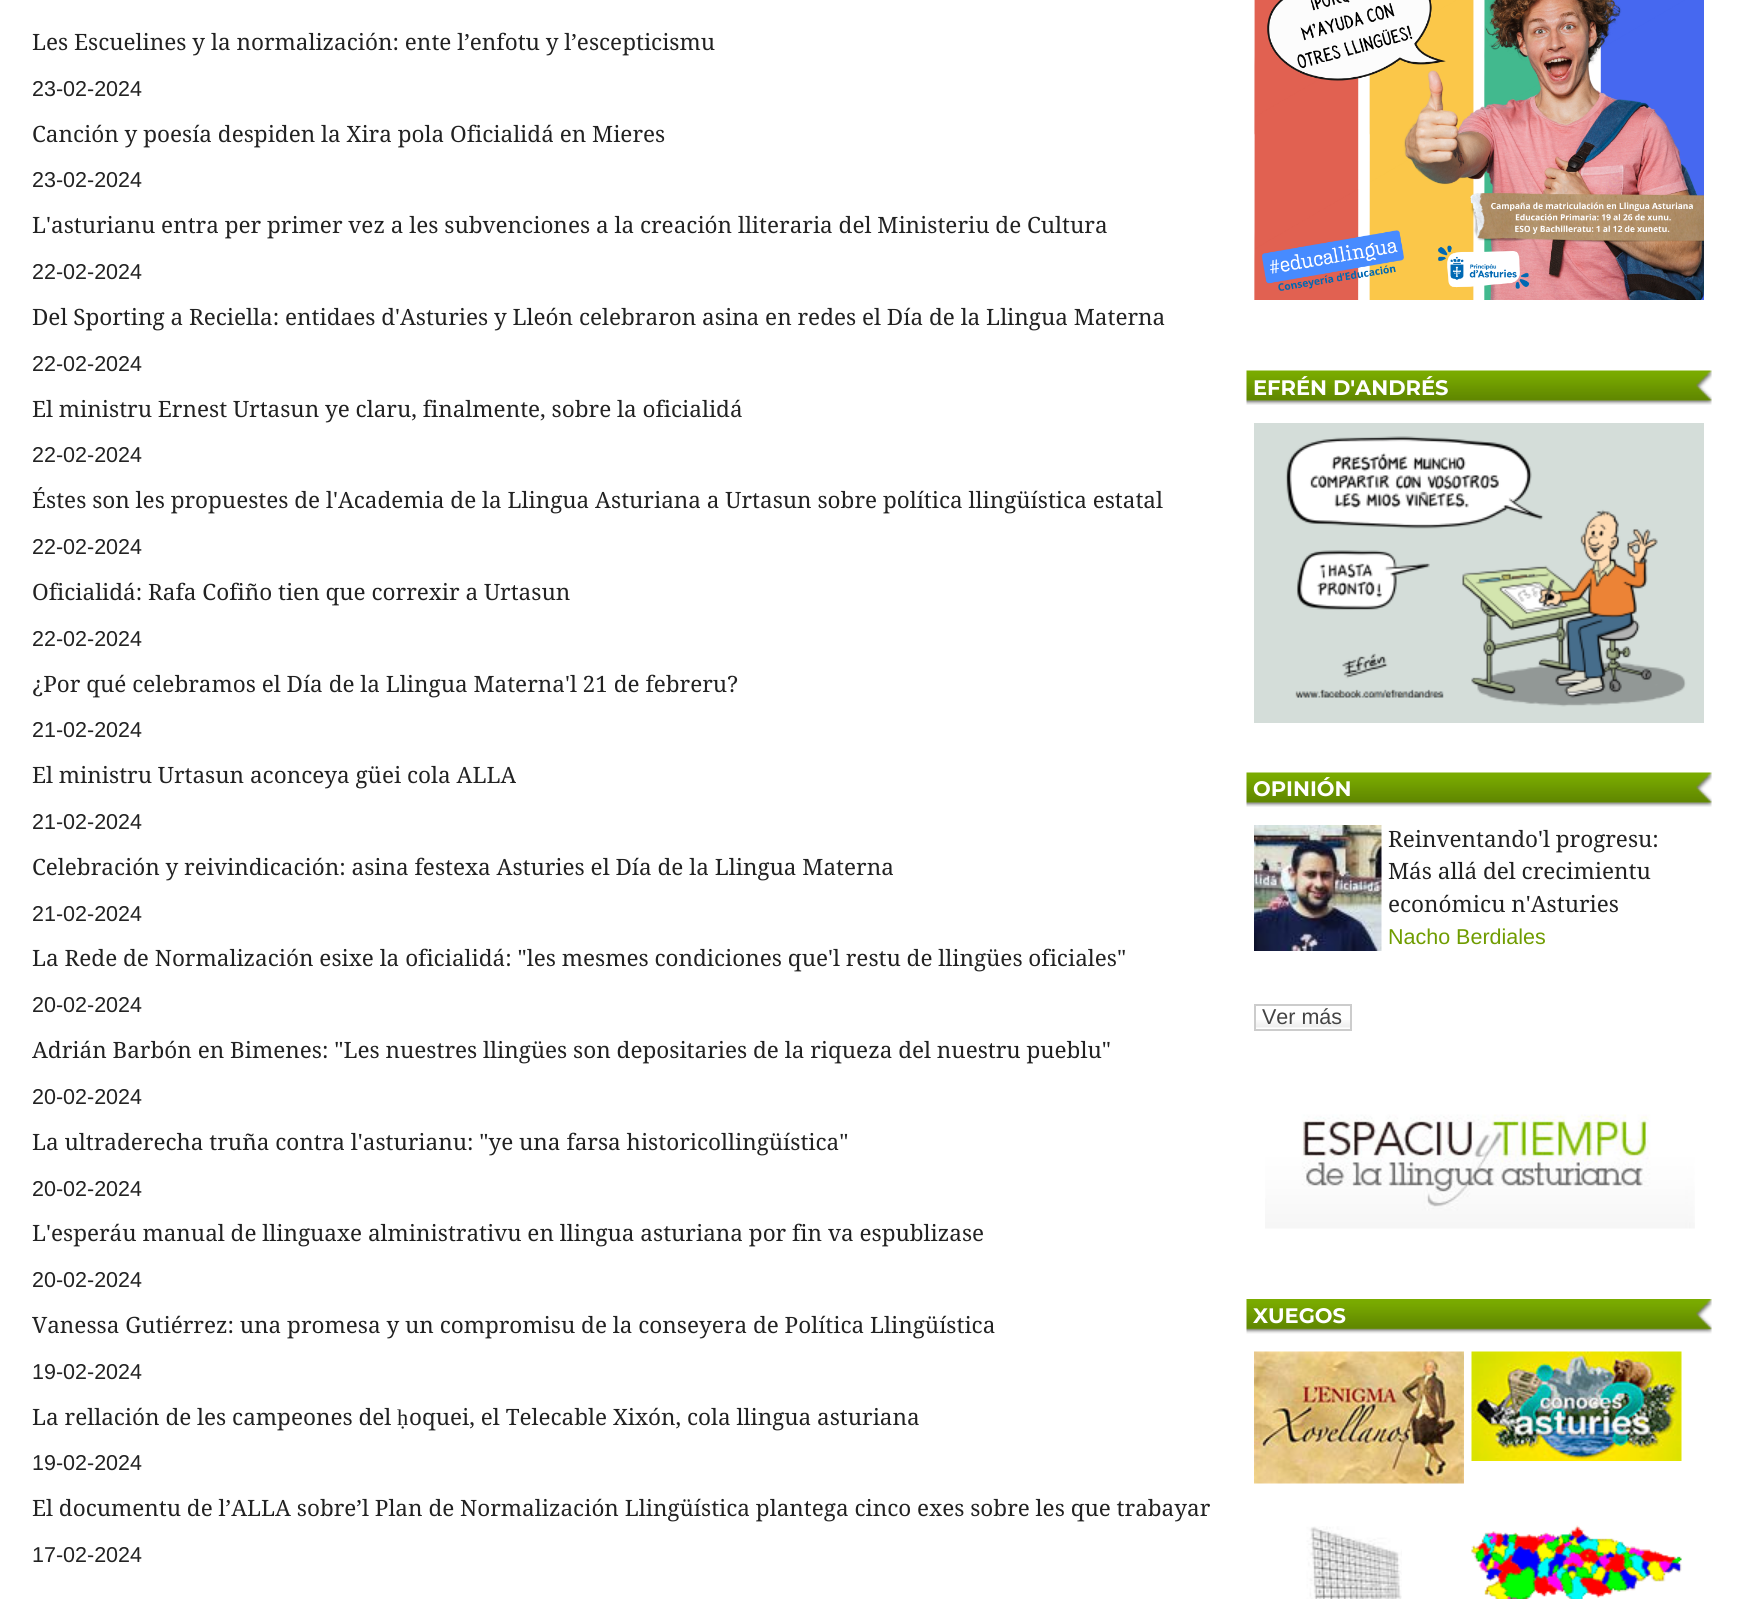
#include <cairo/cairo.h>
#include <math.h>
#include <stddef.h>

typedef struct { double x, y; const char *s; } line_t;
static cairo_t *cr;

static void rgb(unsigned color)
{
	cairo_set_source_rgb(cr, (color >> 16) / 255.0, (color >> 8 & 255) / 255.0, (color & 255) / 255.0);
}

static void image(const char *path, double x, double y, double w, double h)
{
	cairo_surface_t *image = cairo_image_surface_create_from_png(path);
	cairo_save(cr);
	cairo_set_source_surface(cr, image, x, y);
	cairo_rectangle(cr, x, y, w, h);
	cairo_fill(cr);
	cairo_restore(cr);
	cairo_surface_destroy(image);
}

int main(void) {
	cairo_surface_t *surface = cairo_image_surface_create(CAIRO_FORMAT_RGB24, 1741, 1599);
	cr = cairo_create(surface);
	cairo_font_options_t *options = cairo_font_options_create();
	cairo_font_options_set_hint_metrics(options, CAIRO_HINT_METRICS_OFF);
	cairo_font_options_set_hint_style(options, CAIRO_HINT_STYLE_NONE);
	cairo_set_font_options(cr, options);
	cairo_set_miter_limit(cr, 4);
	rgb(0xffffff);
	cairo_paint(cr);
	image("img/1.png", 1254, 0, 450, 300);
	image("img/2.png", 1246, 370, 466, 35);
	image("img/3.png", 1254, 423, 450, 300);
	image("img/2.png", 1246, 772, 466, 35);
	image("img/4.png", 1254, 825, 128, 126);
	image("img/5.png", 1256, 1020, 94, 8);
	cairo_rectangle(cr, 1255, 1005, 96, 25);
	rgb(0xcccccc);
	cairo_stroke(cr);
	image("img/6.png", 1265, 1114, 430, 115);
	image("img/7.png", 1246, 1299, 466, 35);
	image("img/8.png", 1254, 1351, 210, 133);
	image("img/9.png", 1471, 1351, 211, 110);
	image("img/10.png", 1306, 1526, 96, 73);
	image("img/11.png", 1471, 1525, 211, 74);
	cairo_select_font_face(cr, "Droid Serif", CAIRO_FONT_SLANT_NORMAL, CAIRO_FONT_WEIGHT_NORMAL);
	cairo_set_font_size(cr, 22.5);
	rgb(0x222222);
	cairo_move_to(cr, 32, 50);
	cairo_show_text(cr, "Les Escuelines y la normalización: ente l’enfotu y l’escepticismu");
	cairo_select_font_face(cr, "Liberation Sans", CAIRO_FONT_SLANT_NORMAL, CAIRO_FONT_WEIGHT_NORMAL);
	cairo_set_font_size(cr, 21.5);
	cairo_move_to(cr, 32, 96);
	cairo_show_text(cr, "23-02-2024");
	cairo_select_font_face(cr, "Droid Serif", CAIRO_FONT_SLANT_NORMAL, CAIRO_FONT_WEIGHT_NORMAL);
	cairo_set_font_size(cr, 22.5);
	cairo_move_to(cr, 32, 142);
	cairo_show_text(cr, "Canción y poesía despiden la Xira pola Oficialidá en Mieres");
	cairo_select_font_face(cr, "Liberation Sans", CAIRO_FONT_SLANT_NORMAL, CAIRO_FONT_WEIGHT_NORMAL);
	cairo_set_font_size(cr, 21.5);
	cairo_move_to(cr, 32, 187);
	cairo_show_text(cr, "23-02-2024");
	cairo_select_font_face(cr, "Droid Serif", CAIRO_FONT_SLANT_NORMAL, CAIRO_FONT_WEIGHT_NORMAL);
	cairo_set_font_size(cr, 22.5);
	cairo_move_to(cr, 32, 233);
	cairo_show_text(cr, "L'asturianu entra per primer vez a les subvenciones a la creación lliteraria del Ministeriu de Cultura");
	cairo_select_font_face(cr, "Liberation Sans", CAIRO_FONT_SLANT_NORMAL, CAIRO_FONT_WEIGHT_NORMAL);
	cairo_set_font_size(cr, 21.5);
	cairo_move_to(cr, 32, 279);
	cairo_show_text(cr, "22-02-2024");
	cairo_select_font_face(cr, "Droid Serif", CAIRO_FONT_SLANT_NORMAL, CAIRO_FONT_WEIGHT_NORMAL);
	cairo_set_font_size(cr, 22.5);
	cairo_move_to(cr, 32, 325);
	cairo_show_text(cr, "Del Sporting a Reciella: entidaes d'Asturies y Lleón celebraron asina en redes el Día de la Llingua Materna");
	cairo_select_font_face(cr, "Liberation Sans", CAIRO_FONT_SLANT_NORMAL, CAIRO_FONT_WEIGHT_NORMAL);
	cairo_set_font_size(cr, 21.5);
	cairo_move_to(cr, 32, 371);
	cairo_show_text(cr, "22-02-2024");
	cairo_select_font_face(cr, "Droid Serif", CAIRO_FONT_SLANT_NORMAL, CAIRO_FONT_WEIGHT_NORMAL);
	cairo_set_font_size(cr, 22.5);
	cairo_move_to(cr, 32, 417);
	cairo_show_text(cr, "El ministru Ernest Urtasun ye claru, finalmente, sobre la oficialidá");
	cairo_select_font_face(cr, "Liberation Sans", CAIRO_FONT_SLANT_NORMAL, CAIRO_FONT_WEIGHT_NORMAL);
	cairo_set_font_size(cr, 21.5);
	cairo_move_to(cr, 32, 462);
	cairo_show_text(cr, "22-02-2024");
	cairo_select_font_face(cr, "Droid Serif", CAIRO_FONT_SLANT_NORMAL, CAIRO_FONT_WEIGHT_NORMAL);
	cairo_set_font_size(cr, 22.5);
	cairo_move_to(cr, 32, 508);
	cairo_show_text(cr, "Éstes son les propuestes de l'Academia de la Llingua Asturiana a Urtasun sobre política llingüística estatal");
	cairo_select_font_face(cr, "Liberation Sans", CAIRO_FONT_SLANT_NORMAL, CAIRO_FONT_WEIGHT_NORMAL);
	cairo_set_font_size(cr, 21.5);
	cairo_move_to(cr, 32, 554);
	cairo_show_text(cr, "22-02-2024");
	cairo_select_font_face(cr, "Droid Serif", CAIRO_FONT_SLANT_NORMAL, CAIRO_FONT_WEIGHT_NORMAL);
	cairo_set_font_size(cr, 22.5);
	cairo_move_to(cr, 32, 600);
	cairo_show_text(cr, "Oficialidá: Rafa Cofiño tien que correxir a Urtasun");
	cairo_select_font_face(cr, "Liberation Sans", CAIRO_FONT_SLANT_NORMAL, CAIRO_FONT_WEIGHT_NORMAL);
	cairo_set_font_size(cr, 21.5);
	cairo_move_to(cr, 32, 646);
	cairo_show_text(cr, "22-02-2024");
	cairo_select_font_face(cr, "Droid Serif", CAIRO_FONT_SLANT_NORMAL, CAIRO_FONT_WEIGHT_NORMAL);
	cairo_set_font_size(cr, 22.5);
	cairo_move_to(cr, 32, 692);
	cairo_show_text(cr, "¿Por qué celebramos el Día de la Llingua Materna'l 21 de febreru?");
	cairo_select_font_face(cr, "Liberation Sans", CAIRO_FONT_SLANT_NORMAL, CAIRO_FONT_WEIGHT_NORMAL);
	cairo_set_font_size(cr, 21.5);
	cairo_move_to(cr, 32, 737);
	cairo_show_text(cr, "21-02-2024");
	cairo_select_font_face(cr, "Droid Serif", CAIRO_FONT_SLANT_NORMAL, CAIRO_FONT_WEIGHT_NORMAL);
	cairo_set_font_size(cr, 22.5);
	cairo_move_to(cr, 32, 783);
	cairo_show_text(cr, "El ministru Urtasun aconceya güei cola ALLA");
	cairo_select_font_face(cr, "Liberation Sans", CAIRO_FONT_SLANT_NORMAL, CAIRO_FONT_WEIGHT_NORMAL);
	cairo_set_font_size(cr, 21.5);
	cairo_move_to(cr, 32, 829);
	cairo_show_text(cr, "21-02-2024");
	cairo_select_font_face(cr, "Droid Serif", CAIRO_FONT_SLANT_NORMAL, CAIRO_FONT_WEIGHT_NORMAL);
	cairo_set_font_size(cr, 22.5);
	cairo_move_to(cr, 32, 875);
	cairo_show_text(cr, "Celebración y reivindicación: asina festexa Asturies el Día de la Llingua Materna");
	cairo_select_font_face(cr, "Liberation Sans", CAIRO_FONT_SLANT_NORMAL, CAIRO_FONT_WEIGHT_NORMAL);
	cairo_set_font_size(cr, 21.5);
	cairo_move_to(cr, 32, 921);
	cairo_show_text(cr, "21-02-2024");
	cairo_select_font_face(cr, "Droid Serif", CAIRO_FONT_SLANT_NORMAL, CAIRO_FONT_WEIGHT_NORMAL);
	cairo_set_font_size(cr, 22.5);
	cairo_move_to(cr, 32, 966);
	cairo_show_text(cr, "La Rede de Normalización esixe la oficialidá: \"les mesmes condiciones que'l restu de llingües oficiales\"");
	cairo_select_font_face(cr, "Liberation Sans", CAIRO_FONT_SLANT_NORMAL, CAIRO_FONT_WEIGHT_NORMAL);
	cairo_set_font_size(cr, 21.5);
	cairo_move_to(cr, 32, 1012);
	cairo_show_text(cr, "20-02-2024");
	cairo_select_font_face(cr, "Droid Serif", CAIRO_FONT_SLANT_NORMAL, CAIRO_FONT_WEIGHT_NORMAL);
	cairo_set_font_size(cr, 22.5);
	cairo_move_to(cr, 32, 1058);
	cairo_show_text(cr, "Adrián Barbón en Bimenes: \"Les nuestres llingües son depositaries de la riqueza del nuestru pueblu\"");
	cairo_select_font_face(cr, "Liberation Sans", CAIRO_FONT_SLANT_NORMAL, CAIRO_FONT_WEIGHT_NORMAL);
	cairo_set_font_size(cr, 21.5);
	cairo_move_to(cr, 32, 1104);
	cairo_show_text(cr, "20-02-2024");
	cairo_select_font_face(cr, "Droid Serif", CAIRO_FONT_SLANT_NORMAL, CAIRO_FONT_WEIGHT_NORMAL);
	cairo_set_font_size(cr, 22.5);
	cairo_move_to(cr, 32, 1150);
	cairo_show_text(cr, "La ultraderecha truña contra l'asturianu: \"ye una farsa historicollingüística\"");
	cairo_select_font_face(cr, "Liberation Sans", CAIRO_FONT_SLANT_NORMAL, CAIRO_FONT_WEIGHT_NORMAL);
	cairo_set_font_size(cr, 21.5);
	cairo_move_to(cr, 32, 1196);
	cairo_show_text(cr, "20-02-2024");
	cairo_select_font_face(cr, "Droid Serif", CAIRO_FONT_SLANT_NORMAL, CAIRO_FONT_WEIGHT_NORMAL);
	cairo_set_font_size(cr, 22.5);
	cairo_move_to(cr, 32, 1241);
	cairo_show_text(cr, "L'esperáu manual de llinguaxe alministrativu en llingua asturiana por fin va espublizase");
	cairo_select_font_face(cr, "Liberation Sans", CAIRO_FONT_SLANT_NORMAL, CAIRO_FONT_WEIGHT_NORMAL);
	cairo_set_font_size(cr, 21.5);
	cairo_move_to(cr, 32, 1287);
	cairo_show_text(cr, "20-02-2024");
	cairo_select_font_face(cr, "Droid Serif", CAIRO_FONT_SLANT_NORMAL, CAIRO_FONT_WEIGHT_NORMAL);
	cairo_set_font_size(cr, 22.5);
	cairo_move_to(cr, 32, 1333);
	cairo_show_text(cr, "Vanessa Gutiérrez: una promesa y un compromisu de la conseyera de Política Llingüística");
	cairo_select_font_face(cr, "Liberation Sans", CAIRO_FONT_SLANT_NORMAL, CAIRO_FONT_WEIGHT_NORMAL);
	cairo_set_font_size(cr, 21.5);
	cairo_move_to(cr, 32, 1379);
	cairo_show_text(cr, "19-02-2024");
	cairo_select_font_face(cr, "Droid Serif", CAIRO_FONT_SLANT_NORMAL, CAIRO_FONT_WEIGHT_NORMAL);
	cairo_set_font_size(cr, 22.5);
	cairo_move_to(cr, 32, 1425);
	cairo_show_text(cr, "La rellación de les campeones del");
	cairo_select_font_face(cr, "Liberation Serif", CAIRO_FONT_SLANT_NORMAL, CAIRO_FONT_WEIGHT_NORMAL);
	cairo_move_to(cr, 397, 1425);
	cairo_show_text(cr, "ḥ");
	cairo_select_font_face(cr, "Droid Serif", CAIRO_FONT_SLANT_NORMAL, CAIRO_FONT_WEIGHT_NORMAL);
	cairo_move_to(cr, 409, 1425);
	cairo_show_text(cr, "oquei, el Telecable Xixón, cola llingua asturiana");
	cairo_select_font_face(cr, "Liberation Sans", CAIRO_FONT_SLANT_NORMAL, CAIRO_FONT_WEIGHT_NORMAL);
	cairo_set_font_size(cr, 21.5);
	cairo_move_to(cr, 32, 1470);
	cairo_show_text(cr, "19-02-2024");
	cairo_select_font_face(cr, "Droid Serif", CAIRO_FONT_SLANT_NORMAL, CAIRO_FONT_WEIGHT_NORMAL);
	cairo_set_font_size(cr, 22.5);
	cairo_move_to(cr, 32, 1516);
	cairo_show_text(cr, "El documentu de l’ALLA sobre’l Plan de Normalización Llingüística plantega cinco exes sobre les que trabayar");
	cairo_select_font_face(cr, "Liberation Sans", CAIRO_FONT_SLANT_NORMAL, CAIRO_FONT_WEIGHT_NORMAL);
	cairo_set_font_size(cr, 21.5);
	cairo_move_to(cr, 32, 1562);
	cairo_show_text(cr, "17-02-2024");
	cairo_select_font_face(cr, "Montserrat", CAIRO_FONT_SLANT_NORMAL, CAIRO_FONT_WEIGHT_BOLD);
	cairo_set_font_size(cr, 21);
	rgb(0xffffff);
	cairo_move_to(cr, 1253, 395);
	cairo_show_text(cr, "EFRÉN D'ANDRÉS");
	cairo_move_to(cr, 1253, 796);
	cairo_show_text(cr, "OPINIÓN");
	cairo_select_font_face(cr, "Droid Serif", CAIRO_FONT_SLANT_NORMAL, CAIRO_FONT_WEIGHT_NORMAL);
	cairo_set_font_size(cr, 22.5);
	rgb(0x222222);
	{
		static const line_t items[] = {
			{1388, 847, "Reinventando'l progresu:"},
			{1388, 879, "Más allá del crecimientu"},
			{1388, 912, "económicu n'Asturies"},
		};
		for (size_t i = 0; i < sizeof items / sizeof *items; i++) {
			cairo_move_to(cr, items[i].x, items[i].y);
			cairo_show_text(cr, items[i].s);
		}
	}
	cairo_select_font_face(cr, "Liberation Sans", CAIRO_FONT_SLANT_NORMAL, CAIRO_FONT_WEIGHT_NORMAL);
	cairo_set_font_size(cr, 21.5);
	rgb(0x6f9c00);
	cairo_move_to(cr, 1388, 944);
	cairo_show_text(cr, "Nacho Berdiales");
	rgb(0x444444);
	cairo_move_to(cr, 1262, 1024);
	cairo_show_text(cr, "Ver más");
	cairo_select_font_face(cr, "Montserrat", CAIRO_FONT_SLANT_NORMAL, CAIRO_FONT_WEIGHT_BOLD);
	cairo_set_font_size(cr, 21);
	rgb(0xffffff);
	cairo_move_to(cr, 1253, 1323);
	cairo_show_text(cr, "XUEGOS");
	cairo_surface_write_to_png(surface, "page.png");
	cairo_font_options_destroy(options);
	cairo_destroy(cr);
	cairo_surface_destroy(surface);
	return 0;
}
